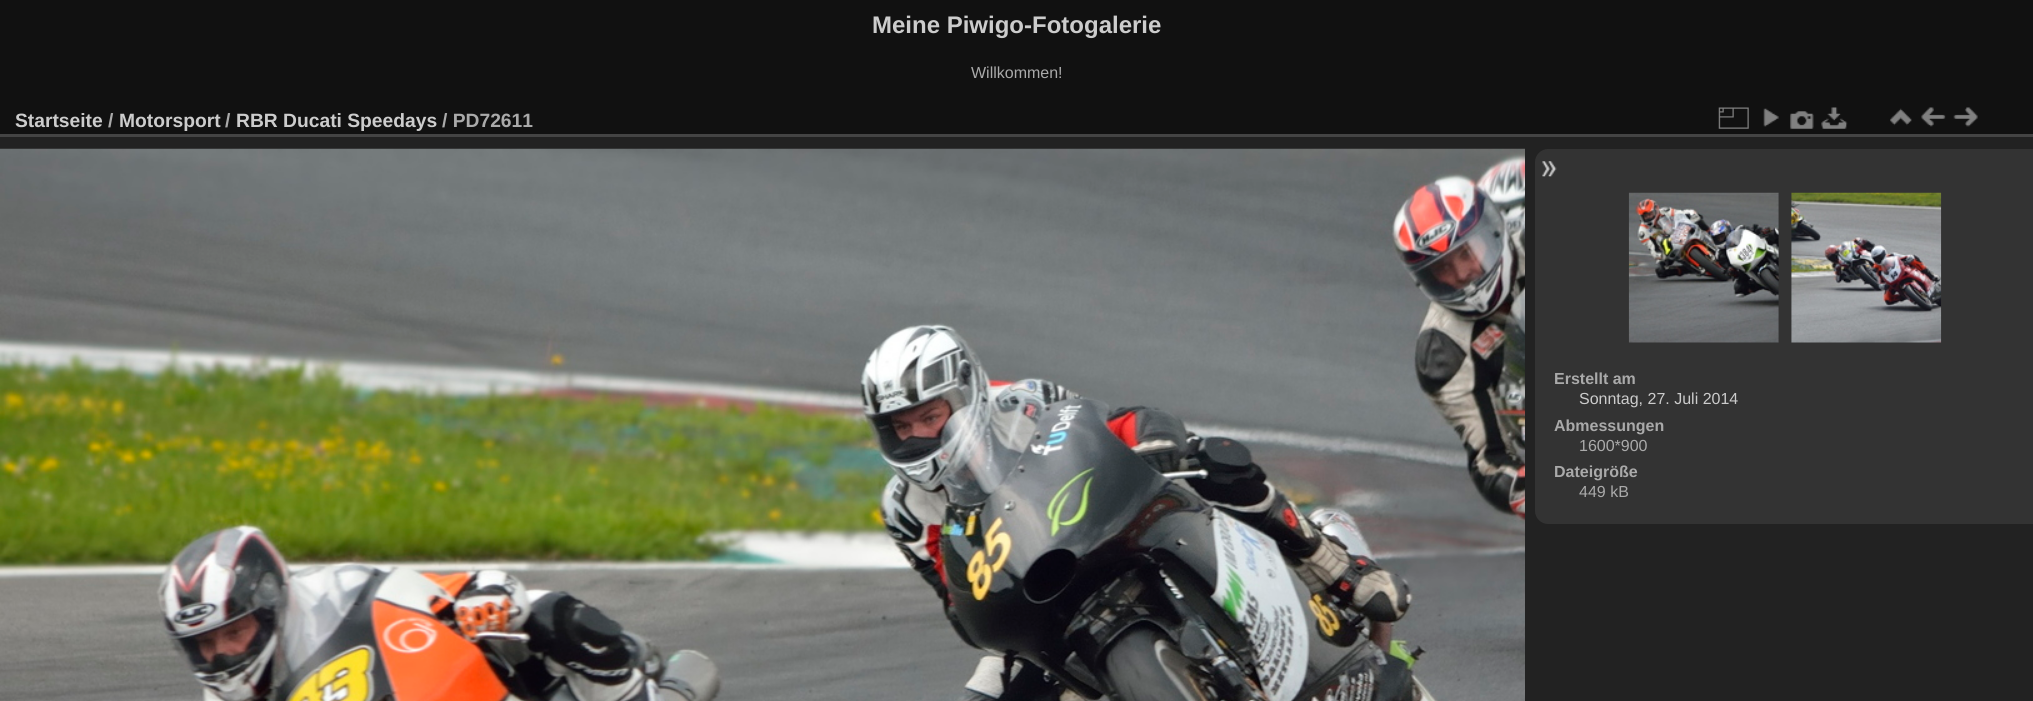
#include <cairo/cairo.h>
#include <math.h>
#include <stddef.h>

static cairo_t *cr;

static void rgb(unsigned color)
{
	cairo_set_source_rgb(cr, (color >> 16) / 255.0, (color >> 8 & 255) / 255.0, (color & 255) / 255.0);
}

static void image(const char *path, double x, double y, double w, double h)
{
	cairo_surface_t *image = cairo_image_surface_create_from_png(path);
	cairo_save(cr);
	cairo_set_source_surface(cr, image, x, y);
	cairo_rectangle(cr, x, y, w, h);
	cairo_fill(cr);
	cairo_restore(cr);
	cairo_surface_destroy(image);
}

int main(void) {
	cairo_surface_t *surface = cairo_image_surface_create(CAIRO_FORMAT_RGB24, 2033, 701);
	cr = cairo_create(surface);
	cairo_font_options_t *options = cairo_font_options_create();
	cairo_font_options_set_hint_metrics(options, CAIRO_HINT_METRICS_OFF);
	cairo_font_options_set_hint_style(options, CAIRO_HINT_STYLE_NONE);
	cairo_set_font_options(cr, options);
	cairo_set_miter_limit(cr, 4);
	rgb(0x111111);
	cairo_paint(cr);
	rgb(0x222222);
	cairo_rectangle(cr, 0, 137, 2033, 564);
	cairo_fill(cr);
	rgb(0x444444);
	cairo_rectangle(cr, 0, 134, 2033, 3);
	cairo_fill(cr);
	image("img/1.png", 1718, 107, 31, 22);
	image("img/2.png", 1763, 108, 16, 19);
	image("img/3.png", 1790, 111, 24, 18);
	image("img/4.png", 1821, 107, 27, 22);
	image("img/5.png", 1890, 108, 22, 18);
	image("img/6.png", 1921, 107, 25, 20);
	image("img/7.png", 1953, 107, 25, 20);
	image("img/8.png", 0, 148, 1525, 553);
	rgb(0x333333);
	cairo_new_path(cr);
	cairo_move_to(cr, 1548, 149);
	cairo_line_to(cr, 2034, 149);
	cairo_line_to(cr, 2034, 524);
	cairo_line_to(cr, 1548, 524);
	cairo_curve_to(cr, 1541, 524, 1535, 518, 1535, 511);
	cairo_line_to(cr, 1535, 162);
	cairo_curve_to(cr, 1535, 155, 1541, 149, 1548, 149);
	cairo_close_path(cr);
	cairo_fill(cr);
	image("img/9.png", 1542, 161, 15, 16);
	image("img/10.png", 1628, 192, 151, 151);
	image("img/11.png", 1791, 192, 151, 151);
	cairo_select_font_face(cr, "Liberation Sans", CAIRO_FONT_SLANT_NORMAL, CAIRO_FONT_WEIGHT_BOLD);
	cairo_set_font_size(cr, 24);
	rgb(0xcccccc);
	cairo_move_to(cr, 872, 33);
	cairo_show_text(cr, "Meine Piwigo-Fotogalerie");
	cairo_select_font_face(cr, "Liberation Sans", CAIRO_FONT_SLANT_NORMAL, CAIRO_FONT_WEIGHT_NORMAL);
	cairo_set_font_size(cr, 16);
	rgb(0xaaaaaa);
	cairo_move_to(cr, 971, 78);
	cairo_show_text(cr, "Willkommen!");
	cairo_select_font_face(cr, "Liberation Sans", CAIRO_FONT_SLANT_NORMAL, CAIRO_FONT_WEIGHT_BOLD);
	cairo_set_font_size(cr, 19.25);
	rgb(0xcccccc);
	cairo_move_to(cr, 15, 127);
	cairo_show_text(cr, "Startseite");
	rgb(0xaaaaaa);
	cairo_move_to(cr, 108, 127);
	cairo_show_text(cr, "/");
	rgb(0xcccccc);
	cairo_move_to(cr, 119, 127);
	cairo_show_text(cr, "Motorsport");
	rgb(0xaaaaaa);
	cairo_move_to(cr, 225, 127);
	cairo_show_text(cr, "/");
	rgb(0xcccccc);
	cairo_move_to(cr, 236, 127);
	cairo_show_text(cr, "RBR Ducati Speedays");
	rgb(0xaaaaaa);
	cairo_move_to(cr, 442, 127);
	cairo_show_text(cr, "/ PD72611");
	cairo_set_font_size(cr, 16);
	cairo_move_to(cr, 1554, 384);
	cairo_show_text(cr, "Erstellt am");
	cairo_select_font_face(cr, "Liberation Sans", CAIRO_FONT_SLANT_NORMAL, CAIRO_FONT_WEIGHT_NORMAL);
	rgb(0xcccccc);
	cairo_move_to(cr, 1579, 404);
	cairo_show_text(cr, "Sonntag, 27. Juli 2014");
	cairo_select_font_face(cr, "Liberation Sans", CAIRO_FONT_SLANT_NORMAL, CAIRO_FONT_WEIGHT_BOLD);
	rgb(0xaaaaaa);
	cairo_move_to(cr, 1554, 431);
	cairo_show_text(cr, "Abmessungen");
	cairo_select_font_face(cr, "Liberation Sans", CAIRO_FONT_SLANT_NORMAL, CAIRO_FONT_WEIGHT_NORMAL);
	cairo_move_to(cr, 1579, 451);
	cairo_show_text(cr, "1600*900");
	cairo_select_font_face(cr, "Liberation Sans", CAIRO_FONT_SLANT_NORMAL, CAIRO_FONT_WEIGHT_BOLD);
	cairo_move_to(cr, 1554, 477);
	cairo_show_text(cr, "Dateigröße");
	cairo_select_font_face(cr, "Liberation Sans", CAIRO_FONT_SLANT_NORMAL, CAIRO_FONT_WEIGHT_NORMAL);
	cairo_move_to(cr, 1579, 497);
	cairo_show_text(cr, "449 kB");
	cairo_surface_write_to_png(surface, "page.png");
	cairo_font_options_destroy(options);
	cairo_destroy(cr);
	cairo_surface_destroy(surface);
	return 0;
}
